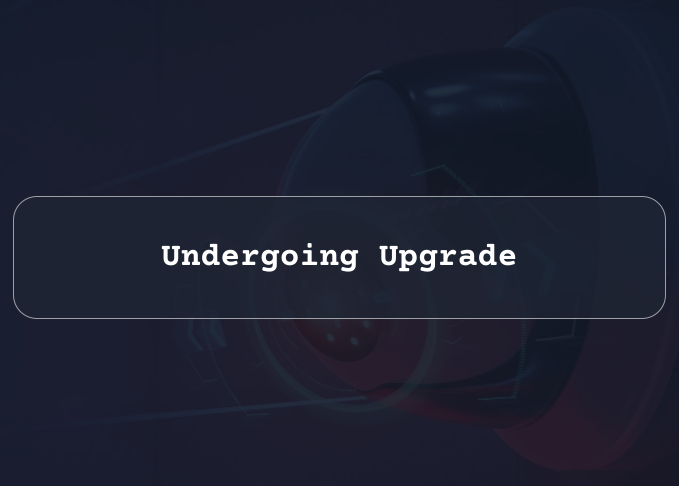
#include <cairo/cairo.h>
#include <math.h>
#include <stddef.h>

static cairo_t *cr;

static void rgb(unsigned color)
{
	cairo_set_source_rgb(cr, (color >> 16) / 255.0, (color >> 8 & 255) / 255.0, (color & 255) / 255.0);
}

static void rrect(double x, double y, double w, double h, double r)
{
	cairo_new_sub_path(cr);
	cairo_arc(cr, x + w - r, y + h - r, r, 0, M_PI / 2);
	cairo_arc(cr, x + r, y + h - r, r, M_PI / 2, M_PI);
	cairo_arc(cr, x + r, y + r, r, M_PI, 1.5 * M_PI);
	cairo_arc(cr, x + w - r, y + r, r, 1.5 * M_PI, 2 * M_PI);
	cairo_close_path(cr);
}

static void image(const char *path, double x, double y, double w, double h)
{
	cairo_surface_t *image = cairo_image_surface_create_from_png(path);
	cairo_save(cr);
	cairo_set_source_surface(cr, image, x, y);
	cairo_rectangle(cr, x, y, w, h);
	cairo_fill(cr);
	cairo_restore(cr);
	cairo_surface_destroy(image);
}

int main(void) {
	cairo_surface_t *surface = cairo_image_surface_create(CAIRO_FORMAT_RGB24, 679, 486);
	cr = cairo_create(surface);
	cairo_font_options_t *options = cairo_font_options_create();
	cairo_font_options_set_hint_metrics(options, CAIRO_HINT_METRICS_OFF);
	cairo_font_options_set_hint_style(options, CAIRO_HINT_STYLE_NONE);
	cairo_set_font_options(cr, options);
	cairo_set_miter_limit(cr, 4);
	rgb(0xffffff);
	cairo_paint(cr);
	image("img/1.png", 0, 0, 679, 486);
	cairo_set_source_rgba(cr, 0.122, 0.149, 0.204, 0.73);
	rrect(13, 196, 653, 123, 24);
	cairo_fill(cr);
	rrect(13.5, 196.5, 652, 122, 23.5);
	cairo_set_source_rgba(cr, 1, 1, 1, 0.57);
	cairo_set_line_width(cr, 1);
	cairo_stroke(cr);
	cairo_select_font_face(cr, "Courier Prime", CAIRO_FONT_SLANT_NORMAL, CAIRO_FONT_WEIGHT_BOLD);
	cairo_set_font_size(cr, 33);
	rgb(0xffffff);
	cairo_move_to(cr, 161, 265);
	cairo_show_text(cr, "Undergoing Upgrade");
	cairo_surface_write_to_png(surface, "page.png");
	cairo_font_options_destroy(options);
	cairo_destroy(cr);
	cairo_surface_destroy(surface);
	return 0;
}
